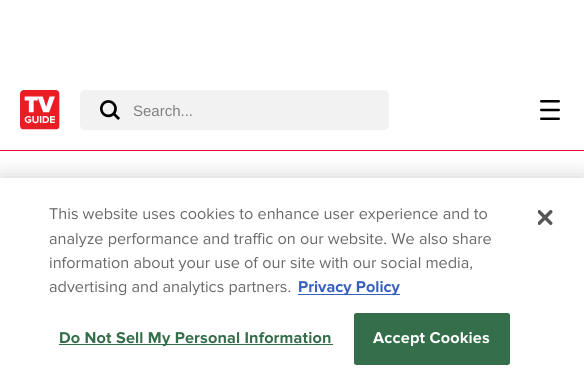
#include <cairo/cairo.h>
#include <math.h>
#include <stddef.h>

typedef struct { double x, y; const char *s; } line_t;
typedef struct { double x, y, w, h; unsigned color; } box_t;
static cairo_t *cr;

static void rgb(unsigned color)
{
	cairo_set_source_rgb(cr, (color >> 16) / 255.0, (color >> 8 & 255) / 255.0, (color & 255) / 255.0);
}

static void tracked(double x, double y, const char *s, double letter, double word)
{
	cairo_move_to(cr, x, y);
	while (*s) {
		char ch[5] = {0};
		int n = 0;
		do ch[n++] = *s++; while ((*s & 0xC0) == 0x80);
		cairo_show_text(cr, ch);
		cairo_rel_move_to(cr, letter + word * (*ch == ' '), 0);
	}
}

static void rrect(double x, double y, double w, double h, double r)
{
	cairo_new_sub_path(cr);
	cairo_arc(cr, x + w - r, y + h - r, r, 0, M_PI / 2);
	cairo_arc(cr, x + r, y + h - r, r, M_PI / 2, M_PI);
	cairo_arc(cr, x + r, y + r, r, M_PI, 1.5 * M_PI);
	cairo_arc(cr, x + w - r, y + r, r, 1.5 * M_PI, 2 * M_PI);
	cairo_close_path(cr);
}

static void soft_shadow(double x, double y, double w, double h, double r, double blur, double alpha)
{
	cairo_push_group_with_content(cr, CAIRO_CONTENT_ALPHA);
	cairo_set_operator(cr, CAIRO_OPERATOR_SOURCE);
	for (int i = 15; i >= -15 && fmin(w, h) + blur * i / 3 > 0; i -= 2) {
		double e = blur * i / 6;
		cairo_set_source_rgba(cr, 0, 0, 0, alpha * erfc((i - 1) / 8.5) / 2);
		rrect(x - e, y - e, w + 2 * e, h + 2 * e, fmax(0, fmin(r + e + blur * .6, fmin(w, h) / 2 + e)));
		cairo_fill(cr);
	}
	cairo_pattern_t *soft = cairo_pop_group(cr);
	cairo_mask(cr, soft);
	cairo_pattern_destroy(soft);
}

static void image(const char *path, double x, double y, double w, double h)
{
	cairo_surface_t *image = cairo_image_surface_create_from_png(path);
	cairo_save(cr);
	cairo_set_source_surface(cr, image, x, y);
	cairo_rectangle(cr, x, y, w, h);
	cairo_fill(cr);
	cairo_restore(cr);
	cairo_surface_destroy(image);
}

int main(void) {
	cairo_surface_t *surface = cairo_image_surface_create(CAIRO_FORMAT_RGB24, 584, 385);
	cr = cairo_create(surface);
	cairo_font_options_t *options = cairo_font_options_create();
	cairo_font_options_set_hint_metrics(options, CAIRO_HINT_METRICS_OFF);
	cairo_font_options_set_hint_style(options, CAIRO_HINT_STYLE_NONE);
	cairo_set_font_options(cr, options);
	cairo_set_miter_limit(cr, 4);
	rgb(0xffffff);
	cairo_paint(cr);
	rgb(0xeb0036);
	cairo_rectangle(cr, 0, 150, 584, 1);
	cairo_fill(cr);
	image("img/1.png", 20, 90, 40, 40);
	rgb(0xf2f2f2);
	rrect(80, 90, 309, 40, 5);
	cairo_fill(cr);
	image("img/2.png", 100, 100, 20, 20);
	image("img/3.png", 540, 100, 20, 20);
	rgb(0x000000);
	soft_shadow(0, 178, 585, 207, 0, 11, 0.2);
	{
		static const box_t items[] = {
			{0, 178, 584, 207, 0xffffff},
			{298, 294, 102, 1, 0x3860be},
			{59, 344, 274, 1, 0x346e4a},
		};
		for (size_t i = 0; i < sizeof items / sizeof *items; i++) {
			rgb(items[i].color);
			cairo_rectangle(cr, items[i].x, items[i].y, items[i].w, items[i].h);
			cairo_fill(cr);
		}
	}
	rrect(354.5, 313.5, 155, 51, 2);
	cairo_fill_preserve(cr);
	cairo_set_line_width(cr, 1);
	cairo_stroke(cr);
	image("img/4.png", 538, 210, 15, 15);
	cairo_select_font_face(cr, "Liberation Sans", CAIRO_FONT_SLANT_NORMAL, CAIRO_FONT_WEIGHT_NORMAL);
	cairo_set_font_size(cr, 15);
	rgb(0x808080);
	cairo_move_to(cr, 133, 116);
	cairo_show_text(cr, "Search...");
	cairo_select_font_face(cr, "Proxima Nova", CAIRO_FONT_SLANT_NORMAL, CAIRO_FONT_WEIGHT_NORMAL);
	cairo_set_font_size(cr, 16.25);
	rgb(0x696969);
	{
		static const line_t items[] = {
			{49, 219, "This website uses cookies to enhance user experience and to"},
			{49, 244, "analyze performance and traffic on our website. We also share"},
			{49, 268, "information about your use of our site with our social media,"},
			{49, 292, "advertising and analytics partners."},
		};
		for (size_t i = 0; i < sizeof items / sizeof *items; i++) {
			cairo_move_to(cr, items[i].x, items[i].y);
			cairo_show_text(cr, items[i].s);
		}
	}
	cairo_select_font_face(cr, "Proxima Nova", CAIRO_FONT_SLANT_NORMAL, CAIRO_FONT_WEIGHT_BOLD);
	rgb(0x3860be);
	cairo_move_to(cr, 298, 292);
	cairo_show_text(cr, "Privacy Policy");
	rgb(0x346e4a);
	tracked(59, 343, "Do Not Sell My Personal Information", 0.15, 0);
	rgb(0xffffff);
	tracked(373, 343, "Accept Cookies", 0.15, 0);
	cairo_surface_write_to_png(surface, "page.png");
	cairo_font_options_destroy(options);
	cairo_destroy(cr);
	cairo_surface_destroy(surface);
	return 0;
}
